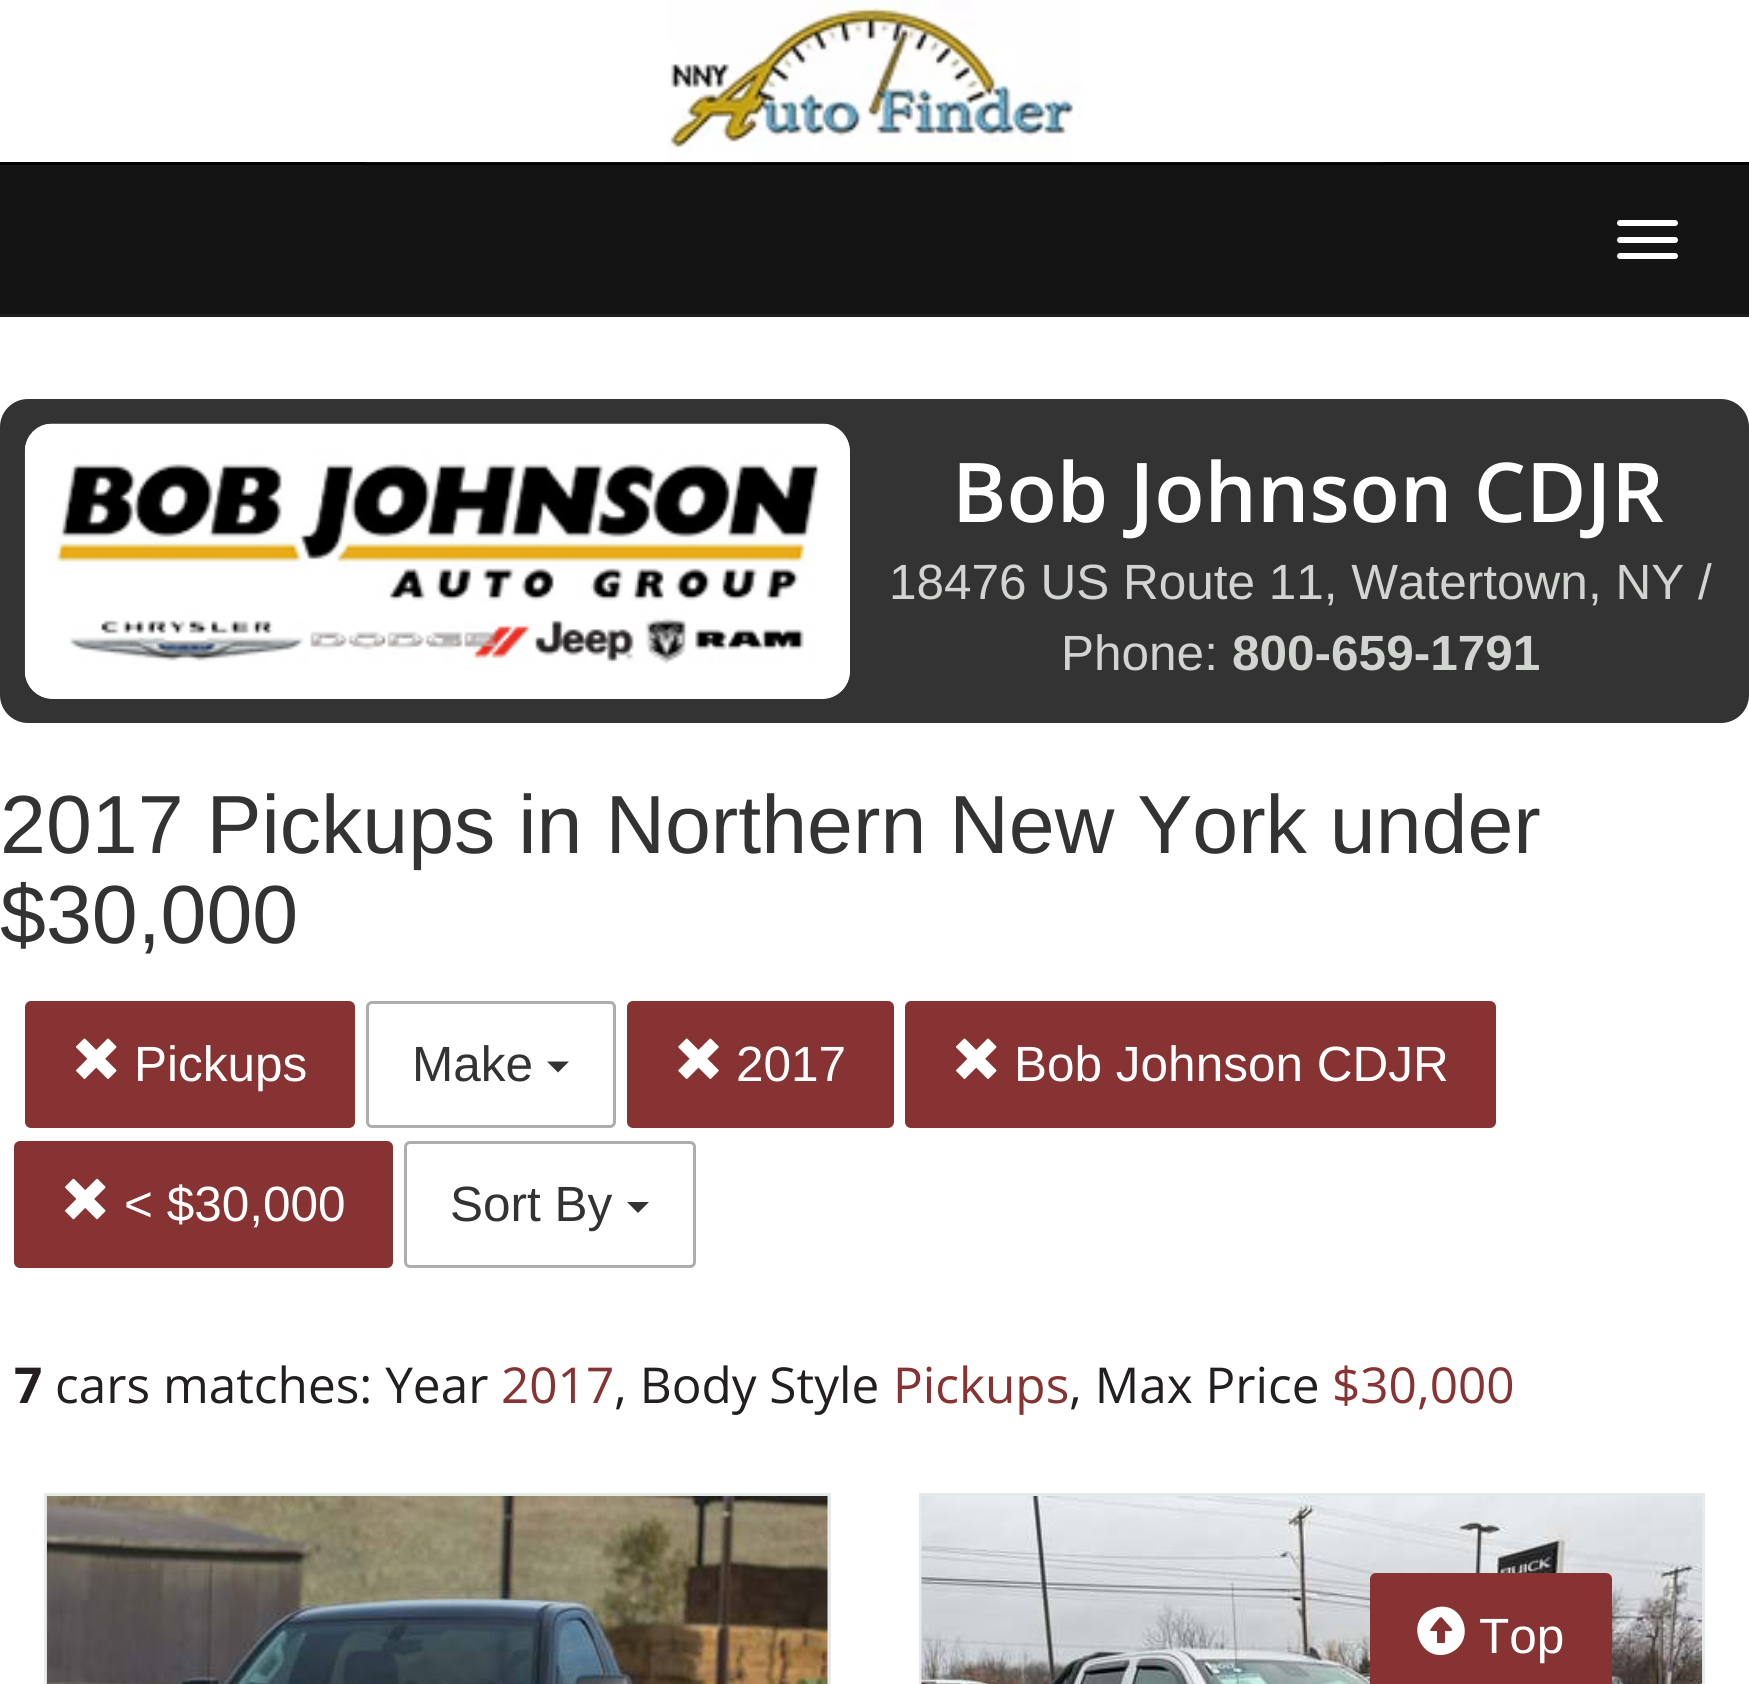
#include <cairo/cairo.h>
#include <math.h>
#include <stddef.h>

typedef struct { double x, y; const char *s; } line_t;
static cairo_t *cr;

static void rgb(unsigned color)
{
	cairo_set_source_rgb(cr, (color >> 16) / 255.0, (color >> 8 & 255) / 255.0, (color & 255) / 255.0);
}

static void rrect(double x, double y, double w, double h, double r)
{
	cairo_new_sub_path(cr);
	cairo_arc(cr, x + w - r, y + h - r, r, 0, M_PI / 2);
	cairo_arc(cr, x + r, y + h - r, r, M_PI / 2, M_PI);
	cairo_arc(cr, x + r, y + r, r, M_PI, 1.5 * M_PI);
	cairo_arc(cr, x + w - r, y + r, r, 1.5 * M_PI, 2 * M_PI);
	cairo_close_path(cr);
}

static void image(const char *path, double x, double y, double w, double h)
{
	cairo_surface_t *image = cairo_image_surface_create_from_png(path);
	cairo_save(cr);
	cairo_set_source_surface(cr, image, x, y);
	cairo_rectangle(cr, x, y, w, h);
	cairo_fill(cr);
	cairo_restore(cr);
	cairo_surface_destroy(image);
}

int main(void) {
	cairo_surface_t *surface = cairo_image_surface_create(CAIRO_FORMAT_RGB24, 1749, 1684);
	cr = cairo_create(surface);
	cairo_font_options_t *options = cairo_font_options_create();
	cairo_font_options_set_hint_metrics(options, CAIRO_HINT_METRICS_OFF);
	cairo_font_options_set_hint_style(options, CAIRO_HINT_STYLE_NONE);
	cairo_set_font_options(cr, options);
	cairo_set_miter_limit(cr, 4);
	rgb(0xffffff);
	cairo_paint(cr);
	rgb(0x000000);
	cairo_rectangle(cr, 0, 162, 1749, 3);
	cairo_fill(cr);
	image("img/1.png", 366, 0, 1017, 163);
	rgb(0x141414);
	cairo_rectangle(cr, 0, 165, 1749, 149);
	cairo_fill(cr);
	rgb(0x1e1e1e);
	cairo_rectangle(cr, 0, 314, 1749, 3);
	cairo_fill(cr);
	rgb(0xffffff);
	rrect(1617, 220, 61, 6, 3);
	cairo_fill(cr);
	rrect(1617, 237, 61, 6, 3);
	cairo_fill(cr);
	rrect(1617, 253, 61, 6, 3);
	cairo_fill(cr);
	rgb(0x333333);
	rrect(0, 399, 1749, 324, 28);
	cairo_fill(cr);
	rgb(0xffffff);
	rrect(25, 424, 825, 275, 28);
	cairo_fill(cr);
	image("img/2.png", 24, 423, 826, 276);
	rgb(0x883333);
	rrect(26.5, 1002.5, 327, 124, 4.5);
	cairo_fill_preserve(cr);
	cairo_set_line_width(cr, 3);
	cairo_stroke(cr);
	image("img/3.png", 76, 1038, 41, 41);
	rrect(367.5, 1002.5, 247, 124, 4.5);
	rgb(0xadadad);
	cairo_stroke(cr);
	rgb(0x333333);
	cairo_new_path(cr);
	cairo_move_to(cr, 547, 1061.5);
	cairo_line_to(cr, 569, 1061.5);
	cairo_line_to(cr, 558, 1072.5);
	cairo_close_path(cr);
	cairo_fill(cr);
	rgb(0x883333);
	rrect(628.5, 1002.5, 264, 124, 4.5);
	cairo_fill_preserve(cr);
	cairo_stroke(cr);
	image("img/4.png", 678, 1038, 41, 41);
	rrect(906.5, 1002.5, 588, 124, 4.5);
	cairo_fill_preserve(cr);
	cairo_stroke(cr);
	image("img/3.png", 956, 1038, 41, 41);
	rrect(15.5, 1142.5, 376, 124, 4.5);
	cairo_fill_preserve(cr);
	cairo_stroke(cr);
	image("img/5.png", 65, 1178, 41, 42);
	rrect(405.5, 1142.5, 289, 124, 4.5);
	rgb(0xadadad);
	cairo_stroke(cr);
	rgb(0x333333);
	cairo_new_path(cr);
	cairo_move_to(cr, 627, 1202);
	cairo_line_to(cr, 649, 1202);
	cairo_line_to(cr, 638, 1213);
	cairo_close_path(cr);
	cairo_fill(cr);
	cairo_rectangle(cr, 45.5, 1494.5, 784, 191);
	rgb(0xe6eaea);
	cairo_stroke(cr);
	image("img/6.png", 46, 1496, 782, 188);
	cairo_rectangle(cr, 920.5, 1494.5, 783, 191);
	cairo_stroke(cr);
	image("img/7.png", 921, 1496, 782, 188);
	rgb(0x883333);
	rrect(1371.5, 1574.5, 239, 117, 4.5);
	cairo_fill_preserve(cr);
	cairo_stroke(cr);
	rgb(0xffffff);
	cairo_new_path(cr);
	cairo_move_to(cr, 1432, 1609);
	cairo_curve_to(cr, 1461, 1596, 1479, 1640, 1450, 1653);
	cairo_curve_to(cr, 1421, 1665, 1403, 1621, 1432, 1609);
	cairo_close_path(cr);
	cairo_move_to(cr, 1452, 1629);
	cairo_line_to(cr, 1444, 1620);
	cairo_curve_to(cr, 1440, 1614, 1439, 1619, 1435, 1623);
	cairo_curve_to(cr, 1429, 1632, 1427, 1631, 1437, 1631);
	cairo_line_to(cr, 1437, 1640);
	cairo_curve_to(cr, 1437, 1644, 1437, 1643, 1441, 1643);
	cairo_curve_to(cr, 1445, 1643, 1445, 1644, 1445, 1640);
	cairo_line_to(cr, 1445, 1631);
	cairo_curve_to(cr, 1446, 1631, 1454, 1632, 1452, 1629);
	cairo_close_path(cr);
	cairo_fill(cr);
	cairo_select_font_face(cr, "Open Sans SemiBold", CAIRO_FONT_SLANT_NORMAL, CAIRO_FONT_WEIGHT_NORMAL);
	cairo_set_font_size(cr, 82.5);
	cairo_move_to(cr, 952, 522);
	cairo_show_text(cr, "Bob Johnson CDJR");
	cairo_select_font_face(cr, "Liberation Sans", CAIRO_FONT_SLANT_NORMAL, CAIRO_FONT_WEIGHT_NORMAL);
	cairo_set_font_size(cr, 49.5);
	rgb(0xd1d4d0);
	cairo_move_to(cr, 889, 599);
	cairo_show_text(cr, "18476 US Route 11, Watertown, NY /");
	cairo_move_to(cr, 1061, 670);
	cairo_show_text(cr, "Phone:");
	cairo_select_font_face(cr, "Liberation Sans", CAIRO_FONT_SLANT_NORMAL, CAIRO_FONT_WEIGHT_BOLD);
	cairo_move_to(cr, 1232, 670);
	cairo_show_text(cr, "800-659-1791");
	cairo_select_font_face(cr, "Liberation Sans", CAIRO_FONT_SLANT_NORMAL, CAIRO_FONT_WEIGHT_NORMAL);
	cairo_set_font_size(cr, 82.5);
	rgb(0x333333);
	cairo_move_to(cr, 0, 853);
	cairo_show_text(cr, "2017 Pickups in Northern New York under");
	cairo_move_to(cr, 0, 943);
	cairo_show_text(cr, "$30,000");
	cairo_set_font_size(cr, 49.5);
	rgb(0xffffff);
	cairo_move_to(cr, 134, 1081);
	cairo_show_text(cr, "Pickups");
	rgb(0x333333);
	cairo_move_to(cr, 412, 1081);
	cairo_show_text(cr, "Make");
	rgb(0xffffff);
	{
		static const line_t items[] = {
			{736, 1081, "2017"},
			{1014, 1081, "Bob Johnson CDJR"},
			{124, 1221, "< $30,000"},
		};
		for (size_t i = 0; i < sizeof items / sizeof *items; i++) {
			cairo_move_to(cr, items[i].x, items[i].y);
			cairo_show_text(cr, items[i].s);
		}
	}
	rgb(0x333333);
	cairo_move_to(cr, 450, 1221);
	cairo_show_text(cr, "Sort By");
	cairo_select_font_face(cr, "Open Sans", CAIRO_FONT_SLANT_NORMAL, CAIRO_FONT_WEIGHT_BOLD);
	rgb(0x231f20);
	cairo_move_to(cr, 14, 1403);
	cairo_show_text(cr, "7");
	cairo_select_font_face(cr, "Open Sans", CAIRO_FONT_SLANT_NORMAL, CAIRO_FONT_WEIGHT_NORMAL);
	cairo_move_to(cr, 55, 1403);
	cairo_show_text(cr, "cars matches: Year");
	rgb(0x883333);
	cairo_move_to(cr, 501, 1403);
	cairo_show_text(cr, "2017");
	rgb(0x231f20);
	cairo_move_to(cr, 614, 1403);
	cairo_show_text(cr, ", Body Style");
	rgb(0x883333);
	cairo_move_to(cr, 893, 1403);
	cairo_show_text(cr, "Pickups");
	rgb(0x231f20);
	cairo_move_to(cr, 1069, 1403);
	cairo_show_text(cr, ", Max Price");
	rgb(0x883333);
	cairo_move_to(cr, 1332, 1403);
	cairo_show_text(cr, "$30,000");
	cairo_select_font_face(cr, "Liberation Sans", CAIRO_FONT_SLANT_NORMAL, CAIRO_FONT_WEIGHT_NORMAL);
	rgb(0xffffff);
	cairo_move_to(cr, 1479, 1653);
	cairo_show_text(cr, "Top");
	cairo_surface_write_to_png(surface, "page.png");
	cairo_font_options_destroy(options);
	cairo_destroy(cr);
	cairo_surface_destroy(surface);
	return 0;
}
